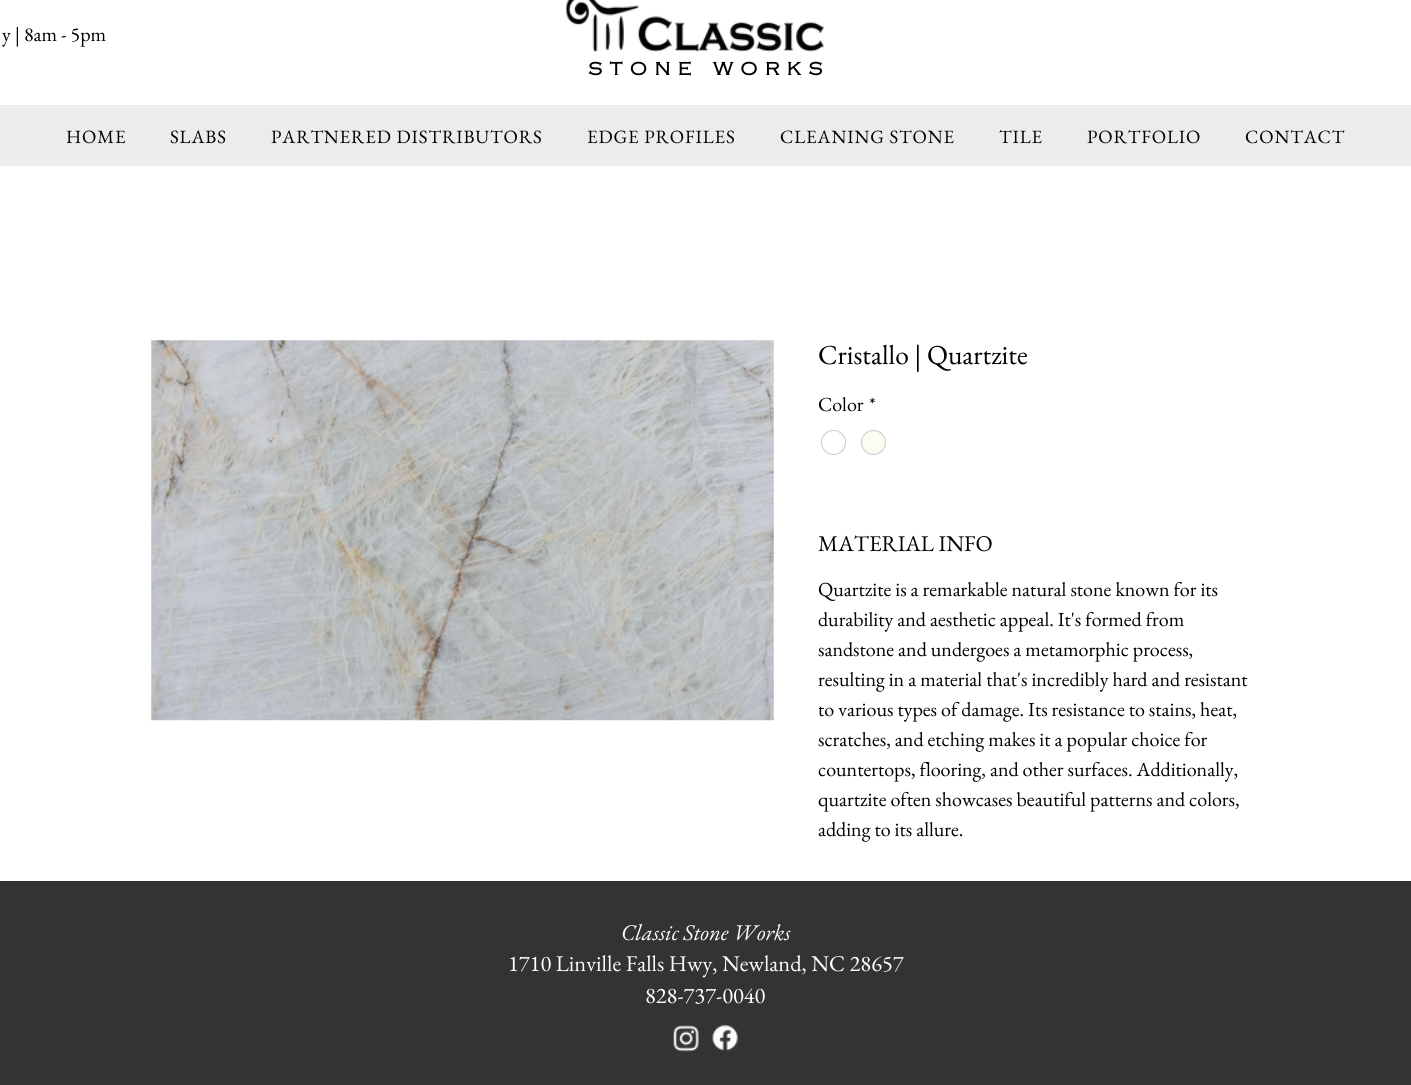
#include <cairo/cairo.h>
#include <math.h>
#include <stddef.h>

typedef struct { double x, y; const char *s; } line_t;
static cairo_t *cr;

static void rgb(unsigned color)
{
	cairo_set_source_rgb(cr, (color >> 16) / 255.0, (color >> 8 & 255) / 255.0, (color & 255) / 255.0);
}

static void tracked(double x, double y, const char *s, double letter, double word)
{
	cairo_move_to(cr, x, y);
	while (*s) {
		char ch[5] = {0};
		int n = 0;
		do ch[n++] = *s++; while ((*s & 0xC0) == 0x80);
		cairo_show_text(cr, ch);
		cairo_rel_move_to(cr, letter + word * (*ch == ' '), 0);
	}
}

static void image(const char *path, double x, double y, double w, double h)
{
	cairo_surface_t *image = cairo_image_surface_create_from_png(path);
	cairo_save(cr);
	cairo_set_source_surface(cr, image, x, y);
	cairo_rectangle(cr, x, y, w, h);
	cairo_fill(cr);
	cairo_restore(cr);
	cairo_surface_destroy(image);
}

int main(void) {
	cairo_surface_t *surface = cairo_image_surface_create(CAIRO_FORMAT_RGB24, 1411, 1085);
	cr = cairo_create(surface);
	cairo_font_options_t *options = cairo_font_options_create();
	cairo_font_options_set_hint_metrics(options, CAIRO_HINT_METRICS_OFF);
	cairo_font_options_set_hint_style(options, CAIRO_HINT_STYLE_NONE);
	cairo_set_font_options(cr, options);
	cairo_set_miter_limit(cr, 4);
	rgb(0xffffff);
	cairo_paint(cr);
	image("img/1.png", 566, 0, 258, 52);
	rgb(0xececec);
	cairo_rectangle(cr, 0, 105, 1411, 61);
	cairo_fill(cr);
	image("img/2.png", 151, 340, 623, 381);
	cairo_arc(cr, 833.5, 442.5, 12, 0, 2 * M_PI);
	rgb(0xc9c9c9);
	cairo_set_line_width(cr, 1);
	cairo_stroke(cr);
	rgb(0xfdfcf1);
	cairo_arc(cr, 873.5, 442.5, 12, 0, 2 * M_PI);
	cairo_fill_preserve(cr);
	rgb(0xc9c9c9);
	cairo_stroke(cr);
	rgb(0x333333);
	cairo_rectangle(cr, 0, 881, 1411, 204);
	cairo_fill(cr);
	image("img/3.png", 673, 1025, 26, 27);
	image("img/4.png", 712, 1025, 26, 26);
	cairo_select_font_face(cr, "EB Garamond", CAIRO_FONT_SLANT_NORMAL, CAIRO_FONT_WEIGHT_NORMAL);
	cairo_set_font_size(cr, 20);
	rgb(0x000000);
	cairo_move_to(cr, 2, 41);
	cairo_show_text(cr, "y | 8am - 5pm");
	cairo_select_font_face(cr, "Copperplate", CAIRO_FONT_SLANT_NORMAL, CAIRO_FONT_WEIGHT_BOLD);
	cairo_set_font_size(cr, 18.75);
	tracked(588, 75, "STONE WORKS", 7.5, 0);
	cairo_select_font_face(cr, "EB Garamond", CAIRO_FONT_SLANT_NORMAL, CAIRO_FONT_WEIGHT_NORMAL);
	{
		static const line_t items[] = {
			{66, 143, "HOME"},
			{170, 143, "SLABS"},
			{271, 143, "PARTNERED DISTRIBUTORS"},
			{587, 143, "EDGE PROFILES"},
			{780, 143, "CLEANING STONE"},
			{999, 143, "TILE"},
			{1087, 143, "PORTFOLIO"},
			{1245, 143, "CONTACT"},
		};
		for (size_t i = 0; i < sizeof items / sizeof *items; i++) {
			tracked(items[i].x, items[i].y, items[i].s, 0.9, 0);
		}
	}
	cairo_set_font_size(cr, 27.5);
	cairo_move_to(cr, 818, 364);
	cairo_show_text(cr, "Cristallo | Quartzite");
	cairo_set_font_size(cr, 20);
	cairo_move_to(cr, 818, 411);
	cairo_show_text(cr, "Color");
	cairo_move_to(cr, 869, 411);
	cairo_show_text(cr, "*");
	cairo_set_font_size(cr, 22.5);
	cairo_move_to(cr, 818, 551);
	cairo_show_text(cr, "MATERIAL INFO");
	cairo_set_font_size(cr, 20);
	{
		static const line_t items[] = {
			{818, 596, "Quartzite is a remarkable natural stone known for its"},
			{818, 626, "durability and aesthetic appeal. It's formed from"},
			{818, 656, "sandstone and undergoes a metamorphic process,"},
			{818, 686, "resulting in a material that's incredibly hard and resistant"},
			{818, 716, "to various types of damage. Its resistance to stains, heat,"},
			{818, 746, "scratches, and etching makes it a popular choice for"},
			{818, 776, "countertops, flooring, and other surfaces. Additionally,"},
			{818, 806, "quartzite often showcases beautiful patterns and colors,"},
			{818, 836, "adding to its allure."},
		};
		for (size_t i = 0; i < sizeof items / sizeof *items; i++) {
			cairo_move_to(cr, items[i].x, items[i].y);
			cairo_show_text(cr, items[i].s);
		}
	}
	cairo_select_font_face(cr, "EB Garamond", CAIRO_FONT_SLANT_ITALIC, CAIRO_FONT_WEIGHT_NORMAL);
	cairo_set_font_size(cr, 22.5);
	rgb(0xffffff);
	cairo_move_to(cr, 621, 940);
	cairo_show_text(cr, "Classic Stone Works");
	cairo_select_font_face(cr, "EB Garamond", CAIRO_FONT_SLANT_NORMAL, CAIRO_FONT_WEIGHT_NORMAL);
	cairo_move_to(cr, 508, 971);
	cairo_show_text(cr, "1710 Linville Falls Hwy, Newland, NC 28657");
	cairo_move_to(cr, 645, 1003);
	cairo_show_text(cr, "828-737-0040");
	cairo_surface_write_to_png(surface, "page.png");
	cairo_font_options_destroy(options);
	cairo_destroy(cr);
	cairo_surface_destroy(surface);
	return 0;
}
